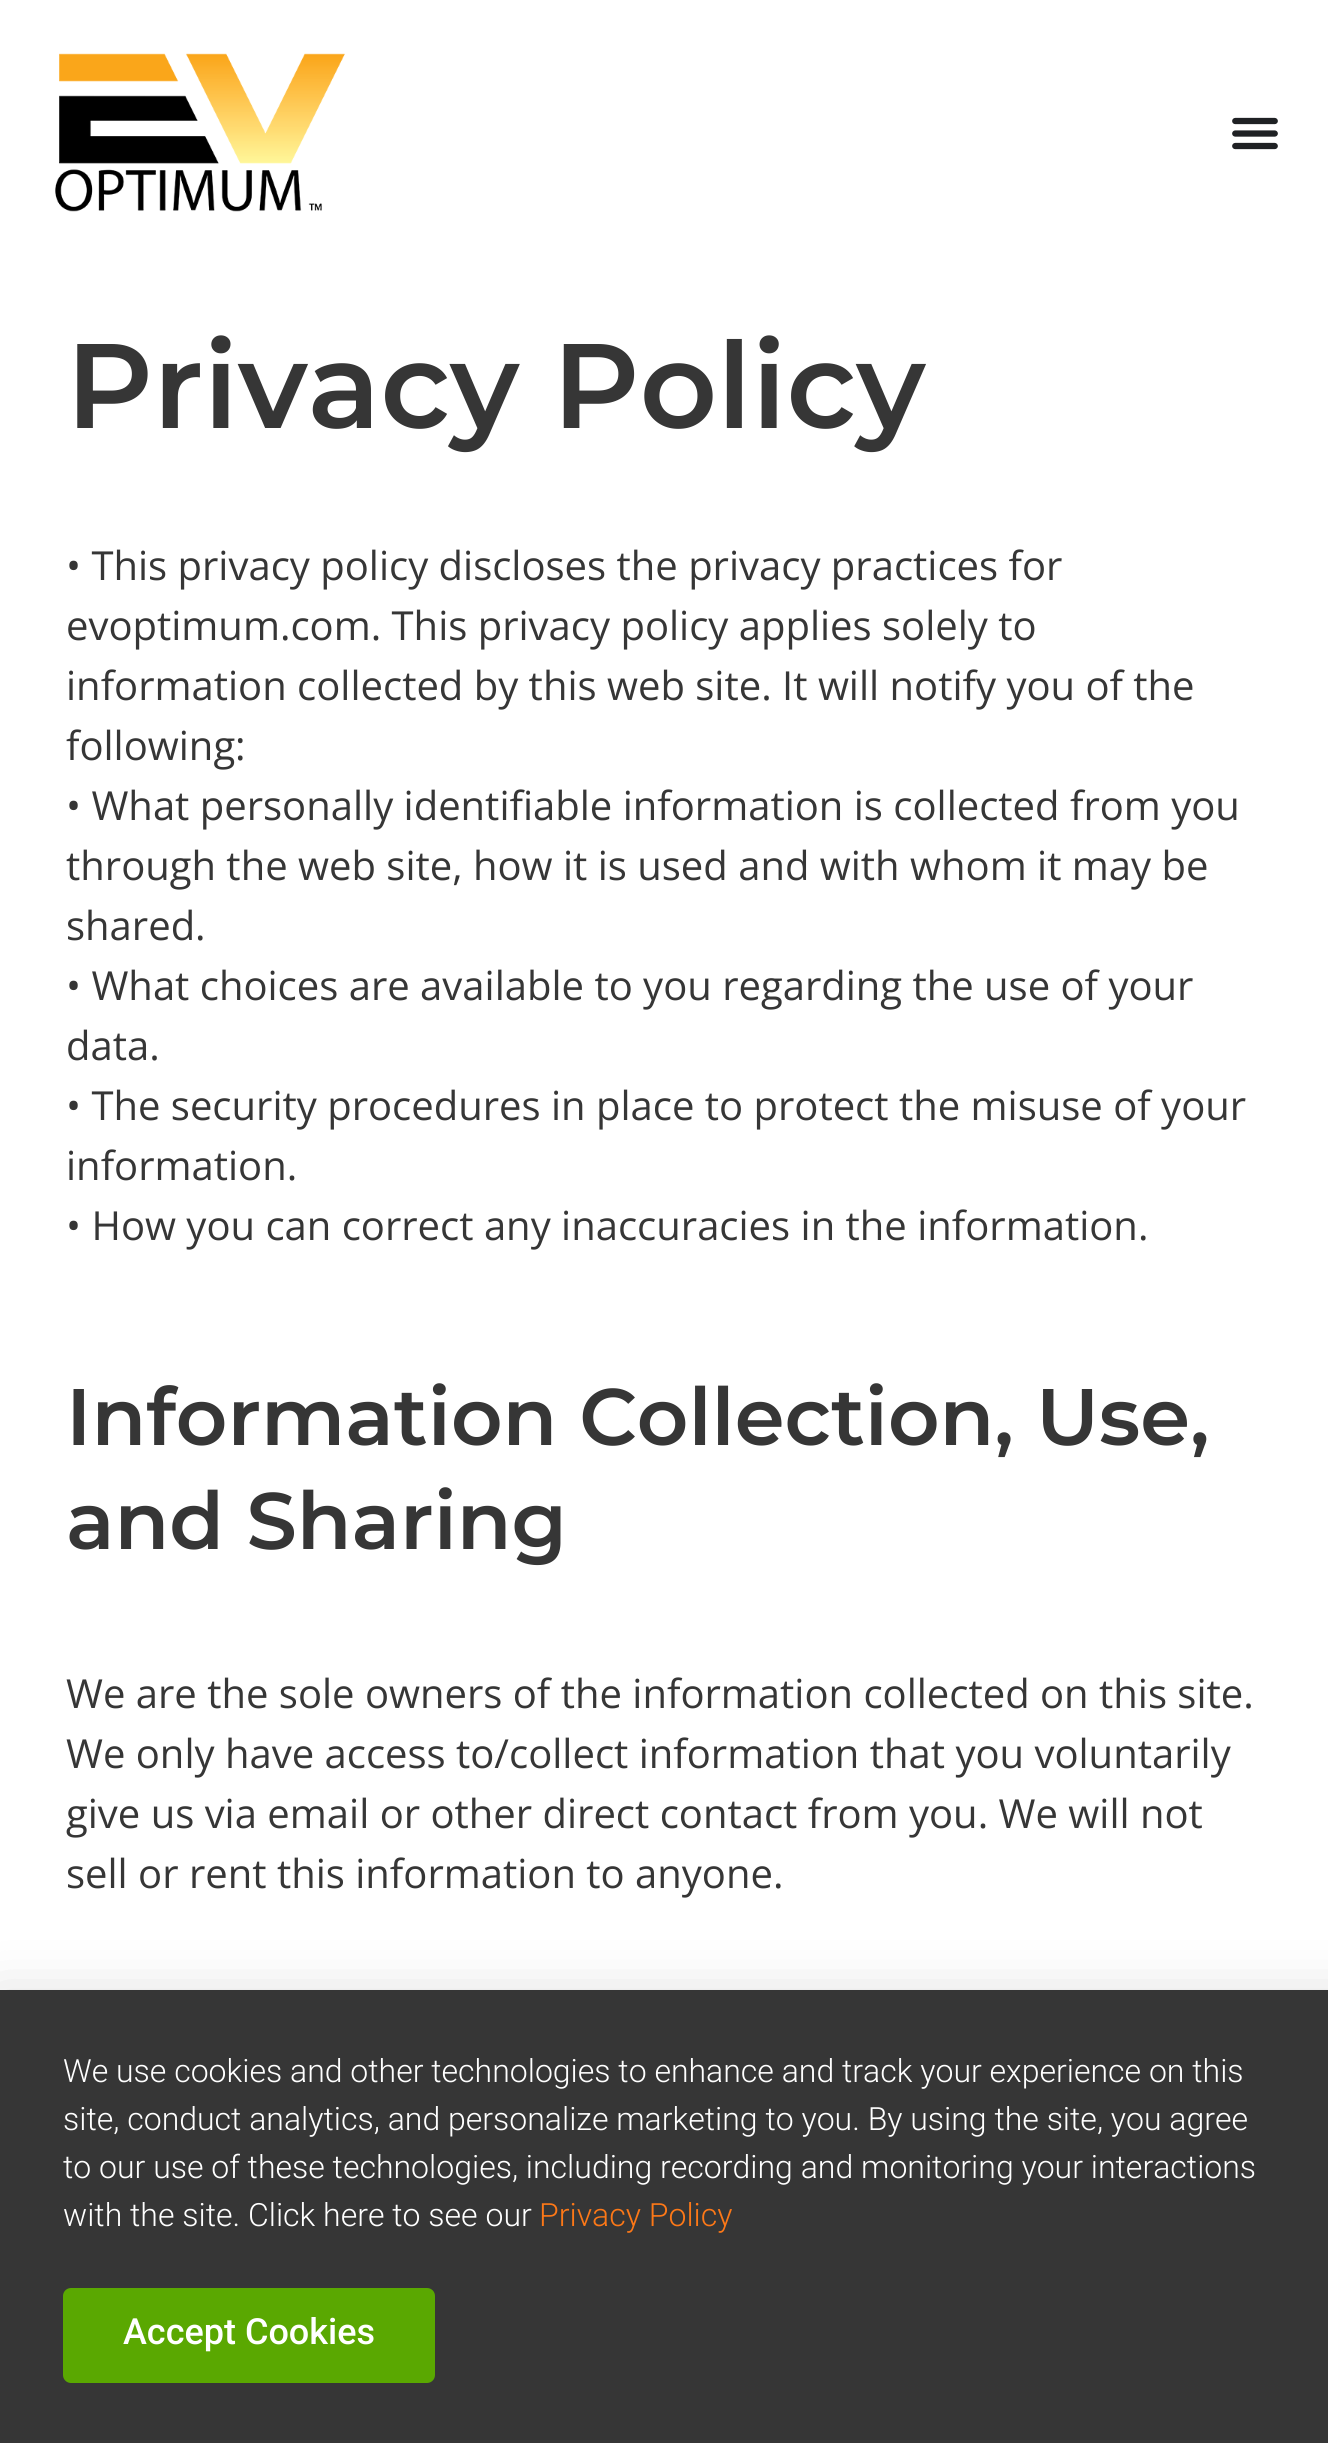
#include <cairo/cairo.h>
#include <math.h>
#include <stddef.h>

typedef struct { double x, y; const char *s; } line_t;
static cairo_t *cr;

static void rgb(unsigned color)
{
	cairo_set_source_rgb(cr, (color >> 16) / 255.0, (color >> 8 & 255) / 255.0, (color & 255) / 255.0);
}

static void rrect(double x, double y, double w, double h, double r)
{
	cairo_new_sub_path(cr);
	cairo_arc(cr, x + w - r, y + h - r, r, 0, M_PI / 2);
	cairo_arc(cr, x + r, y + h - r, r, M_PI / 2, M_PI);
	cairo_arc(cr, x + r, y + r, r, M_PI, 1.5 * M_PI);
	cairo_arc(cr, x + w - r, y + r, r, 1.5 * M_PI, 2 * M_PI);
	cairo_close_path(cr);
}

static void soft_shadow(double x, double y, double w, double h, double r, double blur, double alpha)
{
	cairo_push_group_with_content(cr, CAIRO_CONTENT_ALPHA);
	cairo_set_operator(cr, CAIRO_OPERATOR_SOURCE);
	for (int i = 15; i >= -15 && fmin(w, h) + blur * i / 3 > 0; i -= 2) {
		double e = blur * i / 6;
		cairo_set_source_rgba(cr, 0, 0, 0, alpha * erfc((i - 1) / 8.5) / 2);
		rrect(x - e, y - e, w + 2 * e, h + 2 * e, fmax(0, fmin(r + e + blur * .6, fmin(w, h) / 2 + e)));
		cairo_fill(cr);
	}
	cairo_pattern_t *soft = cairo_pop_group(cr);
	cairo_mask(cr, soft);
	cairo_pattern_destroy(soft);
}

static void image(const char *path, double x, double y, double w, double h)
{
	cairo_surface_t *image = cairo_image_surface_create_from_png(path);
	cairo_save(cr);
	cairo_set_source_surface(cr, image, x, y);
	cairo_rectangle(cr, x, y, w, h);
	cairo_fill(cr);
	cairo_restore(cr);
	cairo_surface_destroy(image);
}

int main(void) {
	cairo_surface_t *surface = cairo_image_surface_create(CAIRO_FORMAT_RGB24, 1328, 2443);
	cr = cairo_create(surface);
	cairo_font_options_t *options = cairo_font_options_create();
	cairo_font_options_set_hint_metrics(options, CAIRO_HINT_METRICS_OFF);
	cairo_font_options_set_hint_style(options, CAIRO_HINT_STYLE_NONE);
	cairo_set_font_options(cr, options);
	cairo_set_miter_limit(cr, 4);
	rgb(0xffffff);
	cairo_paint(cr);
	image("img/1.png", 55, 53, 290, 159);
	image("img/2.png", 1232, 117, 46, 33);
	rgb(0x000000);
	soft_shadow(-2, 2003, 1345, 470, 0, 29, 0.2);
	rgb(0x363636);
	cairo_rectangle(cr, 0, 1990, 1328, 453);
	cairo_fill(cr);
	rgb(0x5aa801);
	rrect(63, 2288, 372, 95, 8);
	cairo_fill(cr);
	cairo_select_font_face(cr, "Montserrat SemiBold", CAIRO_FONT_SLANT_NORMAL, CAIRO_FONT_WEIGHT_NORMAL);
	cairo_set_font_size(cr, 120);
	rgb(0x363636);
	cairo_move_to(cr, 66, 428);
	cairo_show_text(cr, "Privacy Policy");
	cairo_select_font_face(cr, "Open Sans", CAIRO_FONT_SLANT_NORMAL, CAIRO_FONT_WEIGHT_NORMAL);
	cairo_set_font_size(cr, 40);
	{
		static const line_t items[] = {
			{66, 580, "• This privacy policy discloses the privacy practices for"},
			{66, 640, "evoptimum.com. This privacy policy applies solely to"},
			{66, 700, "information collected by this web site. It will notify you of the"},
			{66, 760, "following:"},
			{66, 820, "• What personally identifiable information is collected from you"},
			{66, 880, "through the web site, how it is used and with whom it may be"},
			{66, 940, "shared."},
			{66, 1000, "• What choices are available to you regarding the use of your"},
			{66, 1060, "data."},
			{66, 1120, "• The security procedures in place to protect the misuse of your"},
			{66, 1180, "information."},
			{66, 1240, "• How you can correct any inaccuracies in the information."},
		};
		for (size_t i = 0; i < sizeof items / sizeof *items; i++) {
			cairo_move_to(cr, items[i].x, items[i].y);
			cairo_show_text(cr, items[i].s);
		}
	}
	cairo_select_font_face(cr, "Montserrat SemiBold", CAIRO_FONT_SLANT_NORMAL, CAIRO_FONT_WEIGHT_NORMAL);
	cairo_set_font_size(cr, 80);
	cairo_move_to(cr, 66, 1445);
	cairo_show_text(cr, "Information Collection, Use,");
	cairo_move_to(cr, 66, 1549);
	cairo_show_text(cr, "and Sharing");
	cairo_select_font_face(cr, "Open Sans", CAIRO_FONT_SLANT_NORMAL, CAIRO_FONT_WEIGHT_NORMAL);
	cairo_set_font_size(cr, 40);
	{
		static const line_t items[] = {
			{66, 1708, "We are the sole owners of the information collected on this site."},
			{66, 1768, "We only have access to/collect information that you voluntarily"},
			{66, 1828, "give us via email or other direct contact from you. We will not"},
			{66, 1888, "sell or rent this information to anyone."},
		};
		for (size_t i = 0; i < sizeof items / sizeof *items; i++) {
			cairo_move_to(cr, items[i].x, items[i].y);
			cairo_show_text(cr, items[i].s);
		}
	}
	cairo_select_font_face(cr, "Roboto Light", CAIRO_FONT_SLANT_NORMAL, CAIRO_FONT_WEIGHT_NORMAL);
	cairo_set_font_size(cr, 32);
	rgb(0xffffff);
	{
		static const line_t items[] = {
			{63, 2082, "We use cookies and other technologies to enhance and track your experience on this"},
			{63, 2130, "site, conduct analytics, and personalize marketing to you. By using the site, you agree"},
			{63, 2178, "to our use of these technologies, including recording and monitoring your interactions"},
			{63, 2226, "with the site. Click here to see our"},
		};
		for (size_t i = 0; i < sizeof items / sizeof *items; i++) {
			cairo_move_to(cr, items[i].x, items[i].y);
			cairo_show_text(cr, items[i].s);
		}
	}
	rgb(0xfd7817);
	cairo_move_to(cr, 539, 2226);
	cairo_show_text(cr, "Privacy Policy");
	cairo_select_font_face(cr, "Roboto Medium", CAIRO_FONT_SLANT_NORMAL, CAIRO_FONT_WEIGHT_NORMAL);
	cairo_set_font_size(cr, 36);
	rgb(0xffffff);
	cairo_move_to(cr, 123, 2344);
	cairo_show_text(cr, "Accept Cookies");
	cairo_surface_write_to_png(surface, "page.png");
	cairo_font_options_destroy(options);
	cairo_destroy(cr);
	cairo_surface_destroy(surface);
	return 0;
}
